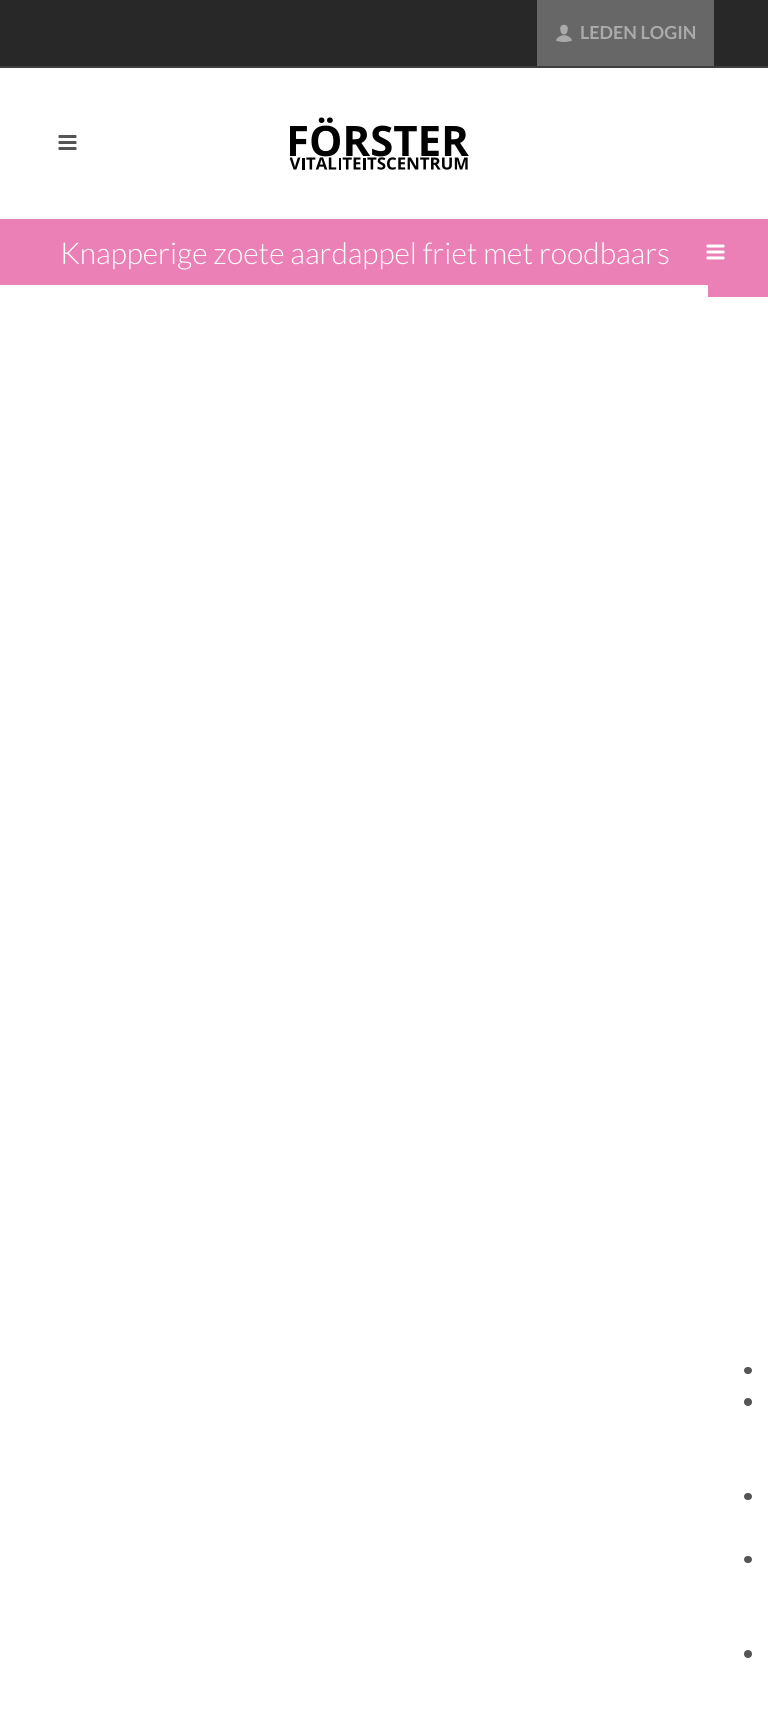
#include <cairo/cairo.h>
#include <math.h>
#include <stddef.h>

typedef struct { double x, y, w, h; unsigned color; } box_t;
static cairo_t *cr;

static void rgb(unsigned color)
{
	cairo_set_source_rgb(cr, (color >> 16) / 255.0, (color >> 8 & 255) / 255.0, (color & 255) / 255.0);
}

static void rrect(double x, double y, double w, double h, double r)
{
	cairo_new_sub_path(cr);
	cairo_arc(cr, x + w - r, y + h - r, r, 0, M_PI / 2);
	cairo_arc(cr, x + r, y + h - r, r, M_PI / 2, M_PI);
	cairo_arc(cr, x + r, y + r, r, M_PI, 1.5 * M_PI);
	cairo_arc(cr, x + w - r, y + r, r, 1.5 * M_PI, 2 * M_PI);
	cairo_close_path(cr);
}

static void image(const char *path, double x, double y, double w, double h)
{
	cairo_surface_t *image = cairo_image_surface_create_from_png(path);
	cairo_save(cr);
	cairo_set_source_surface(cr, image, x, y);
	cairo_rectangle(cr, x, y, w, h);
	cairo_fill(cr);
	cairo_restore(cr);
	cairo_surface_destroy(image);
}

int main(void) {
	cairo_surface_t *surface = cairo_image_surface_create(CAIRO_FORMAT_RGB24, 768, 1722);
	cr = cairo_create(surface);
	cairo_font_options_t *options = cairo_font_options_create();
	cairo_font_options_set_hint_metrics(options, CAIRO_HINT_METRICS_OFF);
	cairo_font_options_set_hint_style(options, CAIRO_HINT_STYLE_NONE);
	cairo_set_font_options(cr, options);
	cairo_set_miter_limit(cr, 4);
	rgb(0xffffff);
	cairo_paint(cr);
	{
		static const box_t items[] = {
			{0, 0, 768, 66, 0x282828},
			{0, 66, 768, 2, 0x3e3e3e},
			{537, 0, 177, 66, 0x676767},
		};
		for (size_t i = 0; i < sizeof items / sizeof *items; i++) {
			rgb(items[i].color);
			cairo_rectangle(cr, items[i].x, items[i].y, items[i].w, items[i].h);
			cairo_fill(cr);
		}
	}
	image("img/1.png", 555, 24, 18, 18);
	rgb(0xf5f5f5);
	cairo_rectangle(cr, 0, 218, 768, 1);
	cairo_fill(cr);
	image("img/2.png", 58, 135, 19, 15);
	image("img/3.png", 290, 117, 179, 53);
	rgb(0xea80b6);
	cairo_rectangle(cr, 0, 219, 768, 66);
	cairo_fill(cr);
	image("img/4.png", 706, 244, 19, 16);
	cairo_rectangle(cr, 708, 285, 60, 12);
	cairo_fill(cr);
	rgb(0x555555);
	rrect(744, 1367, 8, 7, 3.5);
	cairo_fill(cr);
	cairo_arc(cr, 748, 1402, 4, 0, 2 * M_PI);
	cairo_fill(cr);
	rrect(744, 1493, 8, 7, 3.5);
	cairo_fill(cr);
	rrect(744, 1556, 8, 7, 3.5);
	cairo_fill(cr);
	cairo_arc(cr, 748, 1654, 4, 0, 2 * M_PI);
	cairo_fill(cr);
	cairo_select_font_face(cr, "Lato", CAIRO_FONT_SLANT_NORMAL, CAIRO_FONT_WEIGHT_BOLD);
	cairo_set_font_size(cr, 18);
	rgb(0xaaaaaa);
	cairo_move_to(cr, 580, 39);
	cairo_show_text(cr, "LEDEN LOGIN");
	cairo_select_font_face(cr, "Lato Light", CAIRO_FONT_SLANT_NORMAL, CAIRO_FONT_WEIGHT_NORMAL);
	cairo_set_font_size(cr, 30);
	rgb(0xffffff);
	cairo_move_to(cr, 60, 264);
	cairo_show_text(cr, "Knapperige zoete aardappel friet met roodbaars");
	cairo_surface_write_to_png(surface, "page.png");
	cairo_font_options_destroy(options);
	cairo_destroy(cr);
	cairo_surface_destroy(surface);
	return 0;
}
